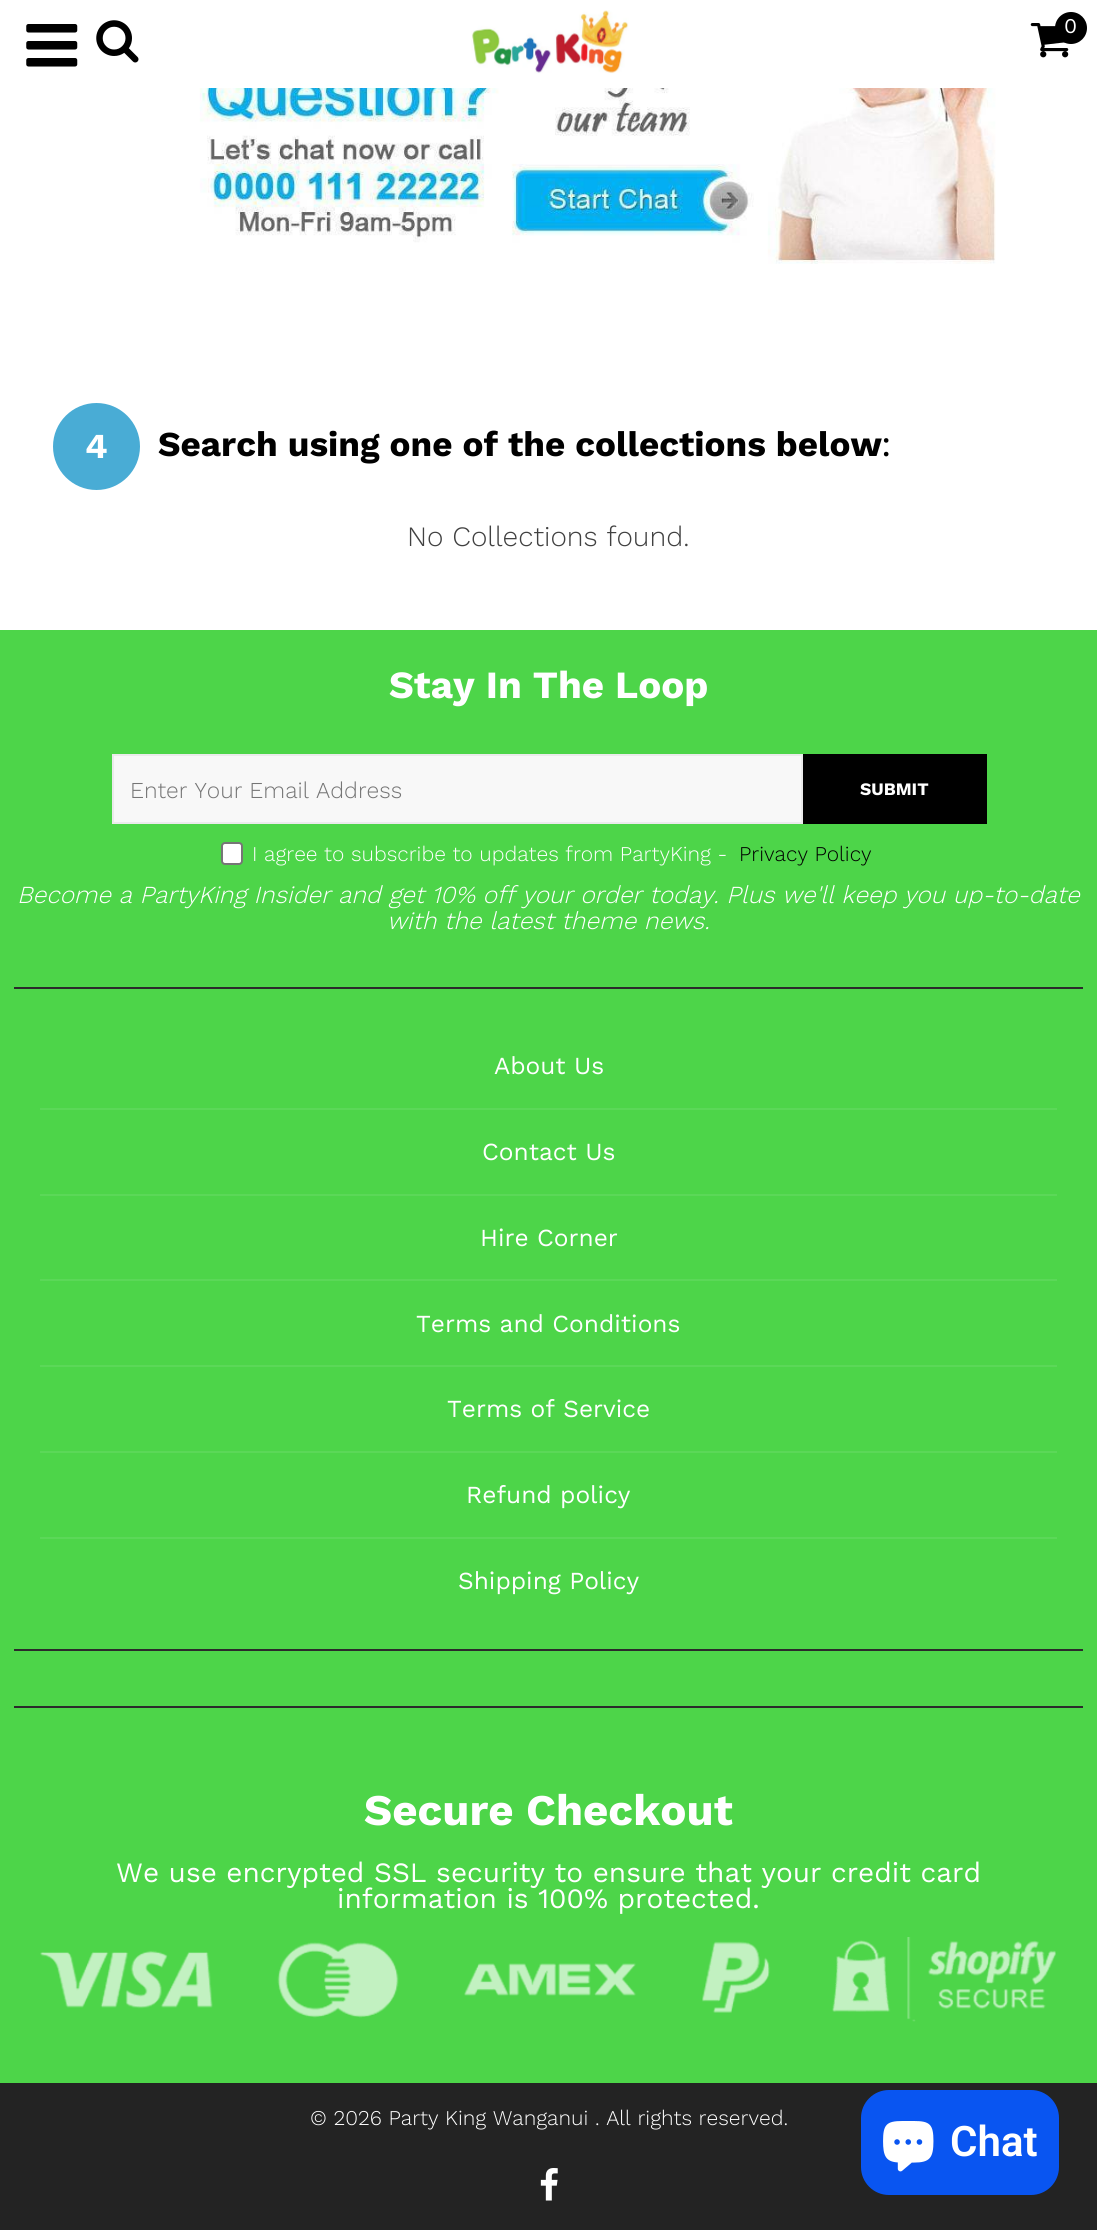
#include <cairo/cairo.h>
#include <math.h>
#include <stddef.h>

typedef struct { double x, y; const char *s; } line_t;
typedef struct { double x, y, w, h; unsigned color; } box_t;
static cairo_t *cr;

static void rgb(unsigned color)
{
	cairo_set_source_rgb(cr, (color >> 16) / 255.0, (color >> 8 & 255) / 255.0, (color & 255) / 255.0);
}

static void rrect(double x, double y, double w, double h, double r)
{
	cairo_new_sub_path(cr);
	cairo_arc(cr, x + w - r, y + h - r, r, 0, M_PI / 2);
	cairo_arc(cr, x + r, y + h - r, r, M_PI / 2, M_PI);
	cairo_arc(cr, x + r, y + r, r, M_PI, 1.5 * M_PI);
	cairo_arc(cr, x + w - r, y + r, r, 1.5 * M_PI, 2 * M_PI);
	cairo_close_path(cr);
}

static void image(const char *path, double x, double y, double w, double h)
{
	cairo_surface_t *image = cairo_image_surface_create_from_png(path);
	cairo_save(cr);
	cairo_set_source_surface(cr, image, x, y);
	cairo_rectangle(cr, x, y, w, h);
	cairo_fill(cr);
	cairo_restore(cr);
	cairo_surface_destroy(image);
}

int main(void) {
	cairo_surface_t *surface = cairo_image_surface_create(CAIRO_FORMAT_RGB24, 1097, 2230);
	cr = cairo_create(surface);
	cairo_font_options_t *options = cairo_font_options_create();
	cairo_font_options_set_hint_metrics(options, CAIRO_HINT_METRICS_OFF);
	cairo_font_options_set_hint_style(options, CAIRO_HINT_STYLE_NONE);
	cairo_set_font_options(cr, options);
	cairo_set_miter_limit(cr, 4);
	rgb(0xffffff);
	cairo_paint(cr);
	image("img/1.png", 26, 24, 52, 43);
	image("img/2.png", 96, 20, 43, 43);
	image("img/3.png", 471, 10, 158, 64);
	image("img/4.png", 1030, 23, 39, 35);
	rgb(0x000000);
	cairo_arc(cr, 1071, 28, 16, 0, 2 * M_PI);
	cairo_fill(cr);
	image("img/5.png", 199, 88, 797, 176);
	rgb(0x49acd5);
	cairo_arc(cr, 96.5, 446.5, 43.5, 0, 2 * M_PI);
	cairo_fill(cr);
	rgb(0x4dd549);
	cairo_rectangle(cr, 0, 630, 1097, 1453);
	cairo_fill(cr);
	rgb(0xf8f8f8);
	cairo_rectangle(cr, 113, 755, 689, 68);
	cairo_fill_preserve(cr);
	rgb(0xebebeb);
	cairo_stroke(cr);
	rgb(0x000000);
	cairo_rectangle(cr, 803, 754, 184, 70);
	cairo_fill(cr);
	rgb(0xffffff);
	rrect(222, 843, 20, 21, 3);
	cairo_fill_preserve(cr);
	rgb(0x767676);
	cairo_stroke(cr);
	{
		static const box_t items[] = {
			{14, 987, 1069, 2, 0x2b2b2b},
			{14, 1649, 1069, 2, 0x2b2b2b},
			{40, 1108, 1017, 2, 0x5bd858},
			{40, 1194, 1017, 2, 0x5bd858},
			{40, 1279, 1017, 2, 0x5bd858},
			{40, 1365, 1017, 2, 0x5bd858},
			{40, 1451, 1017, 2, 0x5bd858},
			{40, 1537, 1017, 2, 0x5bd858},
			{14, 1706, 1069, 2, 0x2b2b2b},
		};
		for (size_t i = 0; i < sizeof items / sizeof *items; i++) {
			rgb(items[i].color);
			cairo_rectangle(cr, items[i].x, items[i].y, items[i].w, items[i].h);
			cairo_fill(cr);
		}
	}
	image("img/6.png", 40, 1937, 1016, 85);
	rgb(0x232323);
	cairo_rectangle(cr, 0, 2083, 1097, 147);
	cairo_fill(cr);
	image("img/7.png", 540, 2168, 18, 33);
	rgb(0x0955f1);
	rrect(861, 2090, 198, 105, 28);
	cairo_fill(cr);
	image("img/8.png", 883, 2121, 51, 51);
	cairo_select_font_face(cr, "Work Sans", CAIRO_FONT_SLANT_NORMAL, CAIRO_FONT_WEIGHT_NORMAL);
	cairo_set_font_size(cr, 21);
	rgb(0xffffff);
	cairo_move_to(cr, 1064, 33);
	cairo_show_text(cr, "0");
	cairo_select_font_face(cr, "Work Sans", CAIRO_FONT_SLANT_NORMAL, CAIRO_FONT_WEIGHT_BOLD);
	cairo_set_font_size(cr, 35);
	cairo_move_to(cr, 85, 458);
	cairo_show_text(cr, "4");
	rgb(0x000000);
	cairo_move_to(cr, 158, 456);
	cairo_show_text(cr, "Search using one of the collections below");
	cairo_select_font_face(cr, "Work Sans", CAIRO_FONT_SLANT_NORMAL, CAIRO_FONT_WEIGHT_NORMAL);
	cairo_move_to(cr, 881, 456);
	cairo_show_text(cr, ":");
	cairo_select_font_face(cr, "Work Sans Light", CAIRO_FONT_SLANT_NORMAL, CAIRO_FONT_WEIGHT_NORMAL);
	cairo_set_font_size(cr, 28);
	rgb(0x414141);
	cairo_move_to(cr, 407, 546);
	cairo_show_text(cr, "No Collections found.");
	cairo_select_font_face(cr, "Work Sans", CAIRO_FONT_SLANT_NORMAL, CAIRO_FONT_WEIGHT_BOLD);
	cairo_set_font_size(cr, 38.5);
	rgb(0xffffff);
	cairo_move_to(cr, 389, 698);
	cairo_show_text(cr, "Stay In The Loop");
	cairo_select_font_face(cr, "Work Sans Light", CAIRO_FONT_SLANT_NORMAL, CAIRO_FONT_WEIGHT_NORMAL);
	cairo_set_font_size(cr, 22.75);
	rgb(0x757575);
	cairo_move_to(cr, 130, 798);
	cairo_show_text(cr, "Enter Your Email Address");
	cairo_select_font_face(cr, "Work Sans", CAIRO_FONT_SLANT_NORMAL, CAIRO_FONT_WEIGHT_BOLD);
	cairo_set_font_size(cr, 17.5);
	rgb(0xffffff);
	cairo_move_to(cr, 860, 795);
	cairo_show_text(cr, "SUBMIT");
	cairo_select_font_face(cr, "Work Sans Light", CAIRO_FONT_SLANT_NORMAL, CAIRO_FONT_WEIGHT_NORMAL);
	cairo_set_font_size(cr, 21);
	cairo_move_to(cr, 252, 861);
	cairo_show_text(cr, "I agree to subscribe to updates from PartyKing -");
	rgb(0x000000);
	cairo_move_to(cr, 739, 861);
	cairo_show_text(cr, "Privacy Policy");
	cairo_select_font_face(cr, "Work Sans Light", CAIRO_FONT_SLANT_ITALIC, CAIRO_FONT_WEIGHT_NORMAL);
	cairo_set_font_size(cr, 24.5);
	rgb(0xffffff);
	cairo_move_to(cr, 17, 903);
	cairo_show_text(cr, "Become a PartyKing Insider and get 10% off your order today. Plus we'll keep you up-to-date");
	cairo_move_to(cr, 387, 929);
	cairo_show_text(cr, "with the latest theme news.");
	cairo_select_font_face(cr, "Work Sans", CAIRO_FONT_SLANT_NORMAL, CAIRO_FONT_WEIGHT_NORMAL);
	{
		static const line_t items[] = {
			{494, 1074, "About Us"},
			{482, 1160, "Contact Us"},
			{480, 1246, "Hire Corner"},
			{416, 1332, "Terms and Conditions"},
			{447, 1417, "Terms of Service"},
			{466, 1503, "Refund policy"},
			{458, 1589, "Shipping Policy"},
		};
		for (size_t i = 0; i < sizeof items / sizeof *items; i++) {
			cairo_move_to(cr, items[i].x, items[i].y);
			cairo_show_text(cr, items[i].s);
		}
	}
	cairo_select_font_face(cr, "Work Sans", CAIRO_FONT_SLANT_NORMAL, CAIRO_FONT_WEIGHT_BOLD);
	cairo_set_font_size(cr, 43.75);
	cairo_move_to(cr, 364, 1825);
	cairo_show_text(cr, "Secure Checkout");
	cairo_select_font_face(cr, "Work Sans", CAIRO_FONT_SLANT_NORMAL, CAIRO_FONT_WEIGHT_NORMAL);
	cairo_set_font_size(cr, 28);
	cairo_move_to(cr, 116, 1882);
	cairo_show_text(cr, "We use encrypted SSL security to ensure that your credit card");
	cairo_move_to(cr, 337, 1908);
	cairo_show_text(cr, "information is 100% protected.");
	cairo_select_font_face(cr, "Work Sans Light", CAIRO_FONT_SLANT_NORMAL, CAIRO_FONT_WEIGHT_NORMAL);
	cairo_set_font_size(cr, 21);
	cairo_move_to(cr, 310, 2125);
	cairo_show_text(cr, "© 2026 Party King Wanganui");
	cairo_move_to(cr, 595, 2125);
	cairo_show_text(cr, ". All rights reserved.");
	cairo_select_font_face(cr, "Roboto SemiBold", CAIRO_FONT_SLANT_NORMAL, CAIRO_FONT_WEIGHT_NORMAL);
	cairo_set_font_size(cr, 42);
	cairo_move_to(cr, 950, 2156);
	cairo_show_text(cr, "Chat");
	cairo_surface_write_to_png(surface, "page.png");
	cairo_font_options_destroy(options);
	cairo_destroy(cr);
	cairo_surface_destroy(surface);
	return 0;
}
